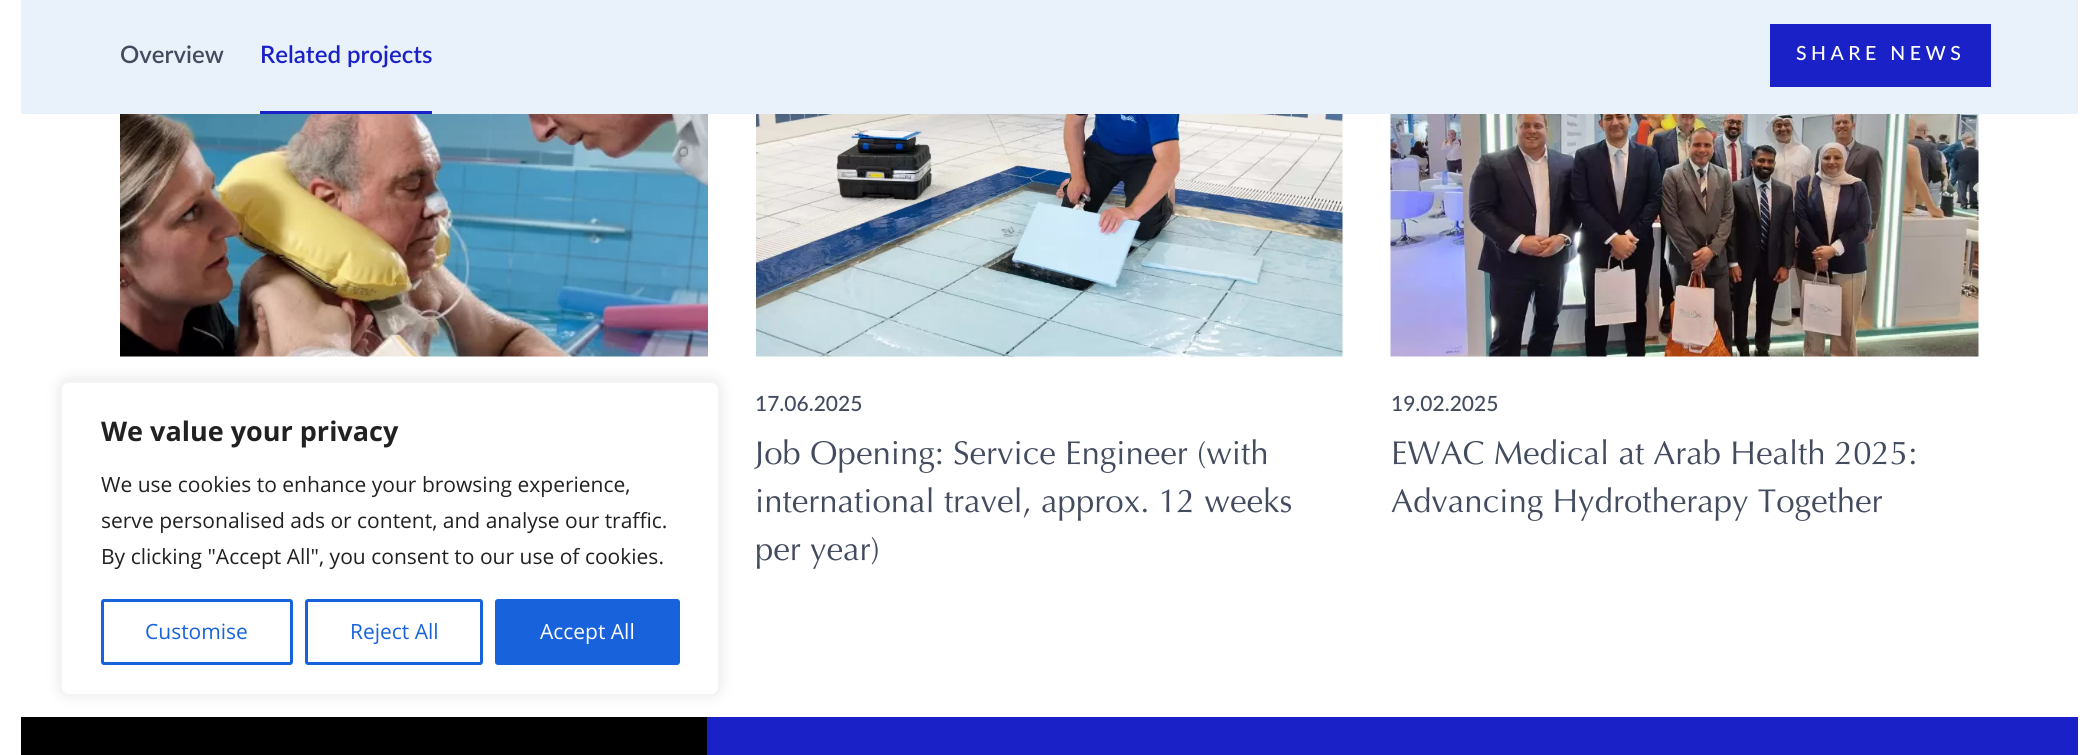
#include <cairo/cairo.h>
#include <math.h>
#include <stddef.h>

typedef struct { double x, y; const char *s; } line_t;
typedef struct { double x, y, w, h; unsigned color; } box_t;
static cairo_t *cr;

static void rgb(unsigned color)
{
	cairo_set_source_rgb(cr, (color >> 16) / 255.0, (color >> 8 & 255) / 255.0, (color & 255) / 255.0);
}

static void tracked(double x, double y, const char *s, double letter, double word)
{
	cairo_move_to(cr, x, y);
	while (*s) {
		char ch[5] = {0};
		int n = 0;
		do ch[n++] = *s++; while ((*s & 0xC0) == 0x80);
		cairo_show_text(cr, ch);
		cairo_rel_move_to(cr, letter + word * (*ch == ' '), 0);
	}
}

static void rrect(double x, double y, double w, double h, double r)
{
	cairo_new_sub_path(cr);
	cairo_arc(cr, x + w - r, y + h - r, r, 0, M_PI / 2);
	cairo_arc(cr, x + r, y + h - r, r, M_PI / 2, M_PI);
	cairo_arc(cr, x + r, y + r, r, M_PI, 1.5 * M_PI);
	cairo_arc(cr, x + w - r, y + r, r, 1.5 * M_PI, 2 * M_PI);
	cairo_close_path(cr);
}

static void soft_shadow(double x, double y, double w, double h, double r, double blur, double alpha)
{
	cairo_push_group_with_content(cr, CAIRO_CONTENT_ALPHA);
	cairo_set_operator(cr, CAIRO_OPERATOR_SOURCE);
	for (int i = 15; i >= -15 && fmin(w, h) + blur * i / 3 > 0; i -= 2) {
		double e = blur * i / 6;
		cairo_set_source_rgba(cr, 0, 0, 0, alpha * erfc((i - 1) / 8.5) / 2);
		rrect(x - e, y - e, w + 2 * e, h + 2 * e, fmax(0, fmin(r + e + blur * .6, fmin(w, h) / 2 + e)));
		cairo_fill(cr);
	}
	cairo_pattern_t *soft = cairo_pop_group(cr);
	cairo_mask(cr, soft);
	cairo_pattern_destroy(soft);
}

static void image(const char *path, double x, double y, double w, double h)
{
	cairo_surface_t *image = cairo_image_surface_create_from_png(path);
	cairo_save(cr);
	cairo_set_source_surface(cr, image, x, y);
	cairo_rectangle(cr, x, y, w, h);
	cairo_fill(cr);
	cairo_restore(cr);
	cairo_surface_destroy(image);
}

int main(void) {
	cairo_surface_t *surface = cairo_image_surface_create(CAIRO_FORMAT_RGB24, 2098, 755);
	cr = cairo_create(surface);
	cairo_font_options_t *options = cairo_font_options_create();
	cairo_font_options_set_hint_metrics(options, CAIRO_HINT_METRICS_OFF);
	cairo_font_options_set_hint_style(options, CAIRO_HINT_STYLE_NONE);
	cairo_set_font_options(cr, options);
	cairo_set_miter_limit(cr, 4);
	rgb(0xffffff);
	cairo_paint(cr);
	{
		static const box_t items[] = {
			{21, 0, 2057, 114, 0xe9f1fb},
			{260, 111, 172, 3, 0x1a21c7},
			{1770, 24, 221, 63, 0x1a21c7},
		};
		for (size_t i = 0; i < sizeof items / sizeof *items; i++) {
			rgb(items[i].color);
			cairo_rectangle(cr, items[i].x, items[i].y, items[i].w, items[i].h);
			cairo_fill(cr);
		}
	}
	image("img/1.png", 120, 114, 588, 243);
	image("img/2.png", 756, 114, 587, 243);
	image("img/3.png", 1390, 114, 589, 243);
	cairo_rectangle(cr, 707, 717, 1371, 38);
	cairo_fill(cr);
	rgb(0x000000);
	cairo_rectangle(cr, 21, 717, 686, 38);
	cairo_fill(cr);
	rgb(0xacabab);
	soft_shadow(60, 380, 660, 315, 9, 7.5, 0.3);
	rgb(0xffffff);
	rrect(61, 382, 658, 313, 8);
	cairo_fill_preserve(cr);
	rgb(0xf4f4f4);
	cairo_stroke(cr);
	rrect(102.5, 600.5, 189, 63, 1.5);
	rgb(0x1863dc);
	cairo_set_line_width(cr, 3);
	cairo_stroke(cr);
	rrect(306.5, 600.5, 175, 63, 1.5);
	cairo_stroke(cr);
	rrect(496.5, 600.5, 182, 63, 1.5);
	cairo_fill_preserve(cr);
	cairo_stroke(cr);
	cairo_select_font_face(cr, "Lato SemiBold", CAIRO_FONT_SLANT_NORMAL, CAIRO_FONT_WEIGHT_NORMAL);
	cairo_set_font_size(cr, 24);
	rgb(0x434b5e);
	cairo_move_to(cr, 120, 63);
	cairo_show_text(cr, "Overview");
	rgb(0x1a21c7);
	cairo_move_to(cr, 260, 63);
	cairo_show_text(cr, "Related projects");
	cairo_select_font_face(cr, "Lato Medium", CAIRO_FONT_SLANT_NORMAL, CAIRO_FONT_WEIGHT_NORMAL);
	cairo_set_font_size(cr, 19.5);
	rgb(0xffffff);
	tracked(1796, 60, "SHARE NEWS", 4.5, 0);
	cairo_set_font_size(cr, 21);
	rgb(0x434b5e);
	cairo_move_to(cr, 755, 411);
	cairo_show_text(cr, "17.06.2025");
	cairo_select_font_face(cr, "Optima", CAIRO_FONT_SLANT_NORMAL, CAIRO_FONT_WEIGHT_NORMAL);
	cairo_set_font_size(cr, 33);
	{
		static const line_t items[] = {
			{755, 464, "Job Opening: Service Engineer (with"},
			{755, 512, "international travel, approx. 12 weeks"},
			{755, 560, "per year)"},
		};
		for (size_t i = 0; i < sizeof items / sizeof *items; i++) {
			cairo_move_to(cr, items[i].x, items[i].y);
			cairo_show_text(cr, items[i].s);
		}
	}
	cairo_select_font_face(cr, "Lato Medium", CAIRO_FONT_SLANT_NORMAL, CAIRO_FONT_WEIGHT_NORMAL);
	cairo_set_font_size(cr, 21);
	cairo_move_to(cr, 1391, 411);
	cairo_show_text(cr, "19.02.2025");
	cairo_select_font_face(cr, "Optima", CAIRO_FONT_SLANT_NORMAL, CAIRO_FONT_WEIGHT_NORMAL);
	cairo_set_font_size(cr, 33);
	cairo_move_to(cr, 1391, 464);
	cairo_show_text(cr, "EWAC Medical at Arab Health 2025:");
	cairo_move_to(cr, 1391, 512);
	cairo_show_text(cr, "Advancing Hydrotherapy Together");
	cairo_select_font_face(cr, "Open Sans", CAIRO_FONT_SLANT_NORMAL, CAIRO_FONT_WEIGHT_BOLD);
	cairo_set_font_size(cr, 27);
	rgb(0x212121);
	cairo_move_to(cr, 101, 441);
	cairo_show_text(cr, "We value your privacy");
	cairo_select_font_face(cr, "Open Sans", CAIRO_FONT_SLANT_NORMAL, CAIRO_FONT_WEIGHT_NORMAL);
	cairo_set_font_size(cr, 21);
	{
		static const line_t items[] = {
			{101, 492, "We use cookies to enhance your browsing experience,"},
			{101, 528, "serve personalised ads or content, and analyse our traffic."},
			{101, 564, "By clicking \"Accept All\", you consent to our use of cookies."},
		};
		for (size_t i = 0; i < sizeof items / sizeof *items; i++) {
			cairo_move_to(cr, items[i].x, items[i].y);
			cairo_show_text(cr, items[i].s);
		}
	}
	rgb(0x1863dc);
	cairo_move_to(cr, 145, 639);
	cairo_show_text(cr, "Customise");
	cairo_move_to(cr, 350, 639);
	cairo_show_text(cr, "Reject All");
	rgb(0xffffff);
	cairo_move_to(cr, 540, 639);
	cairo_show_text(cr, "Accept All");
	cairo_surface_write_to_png(surface, "page.png");
	cairo_font_options_destroy(options);
	cairo_destroy(cr);
	cairo_surface_destroy(surface);
	return 0;
}
